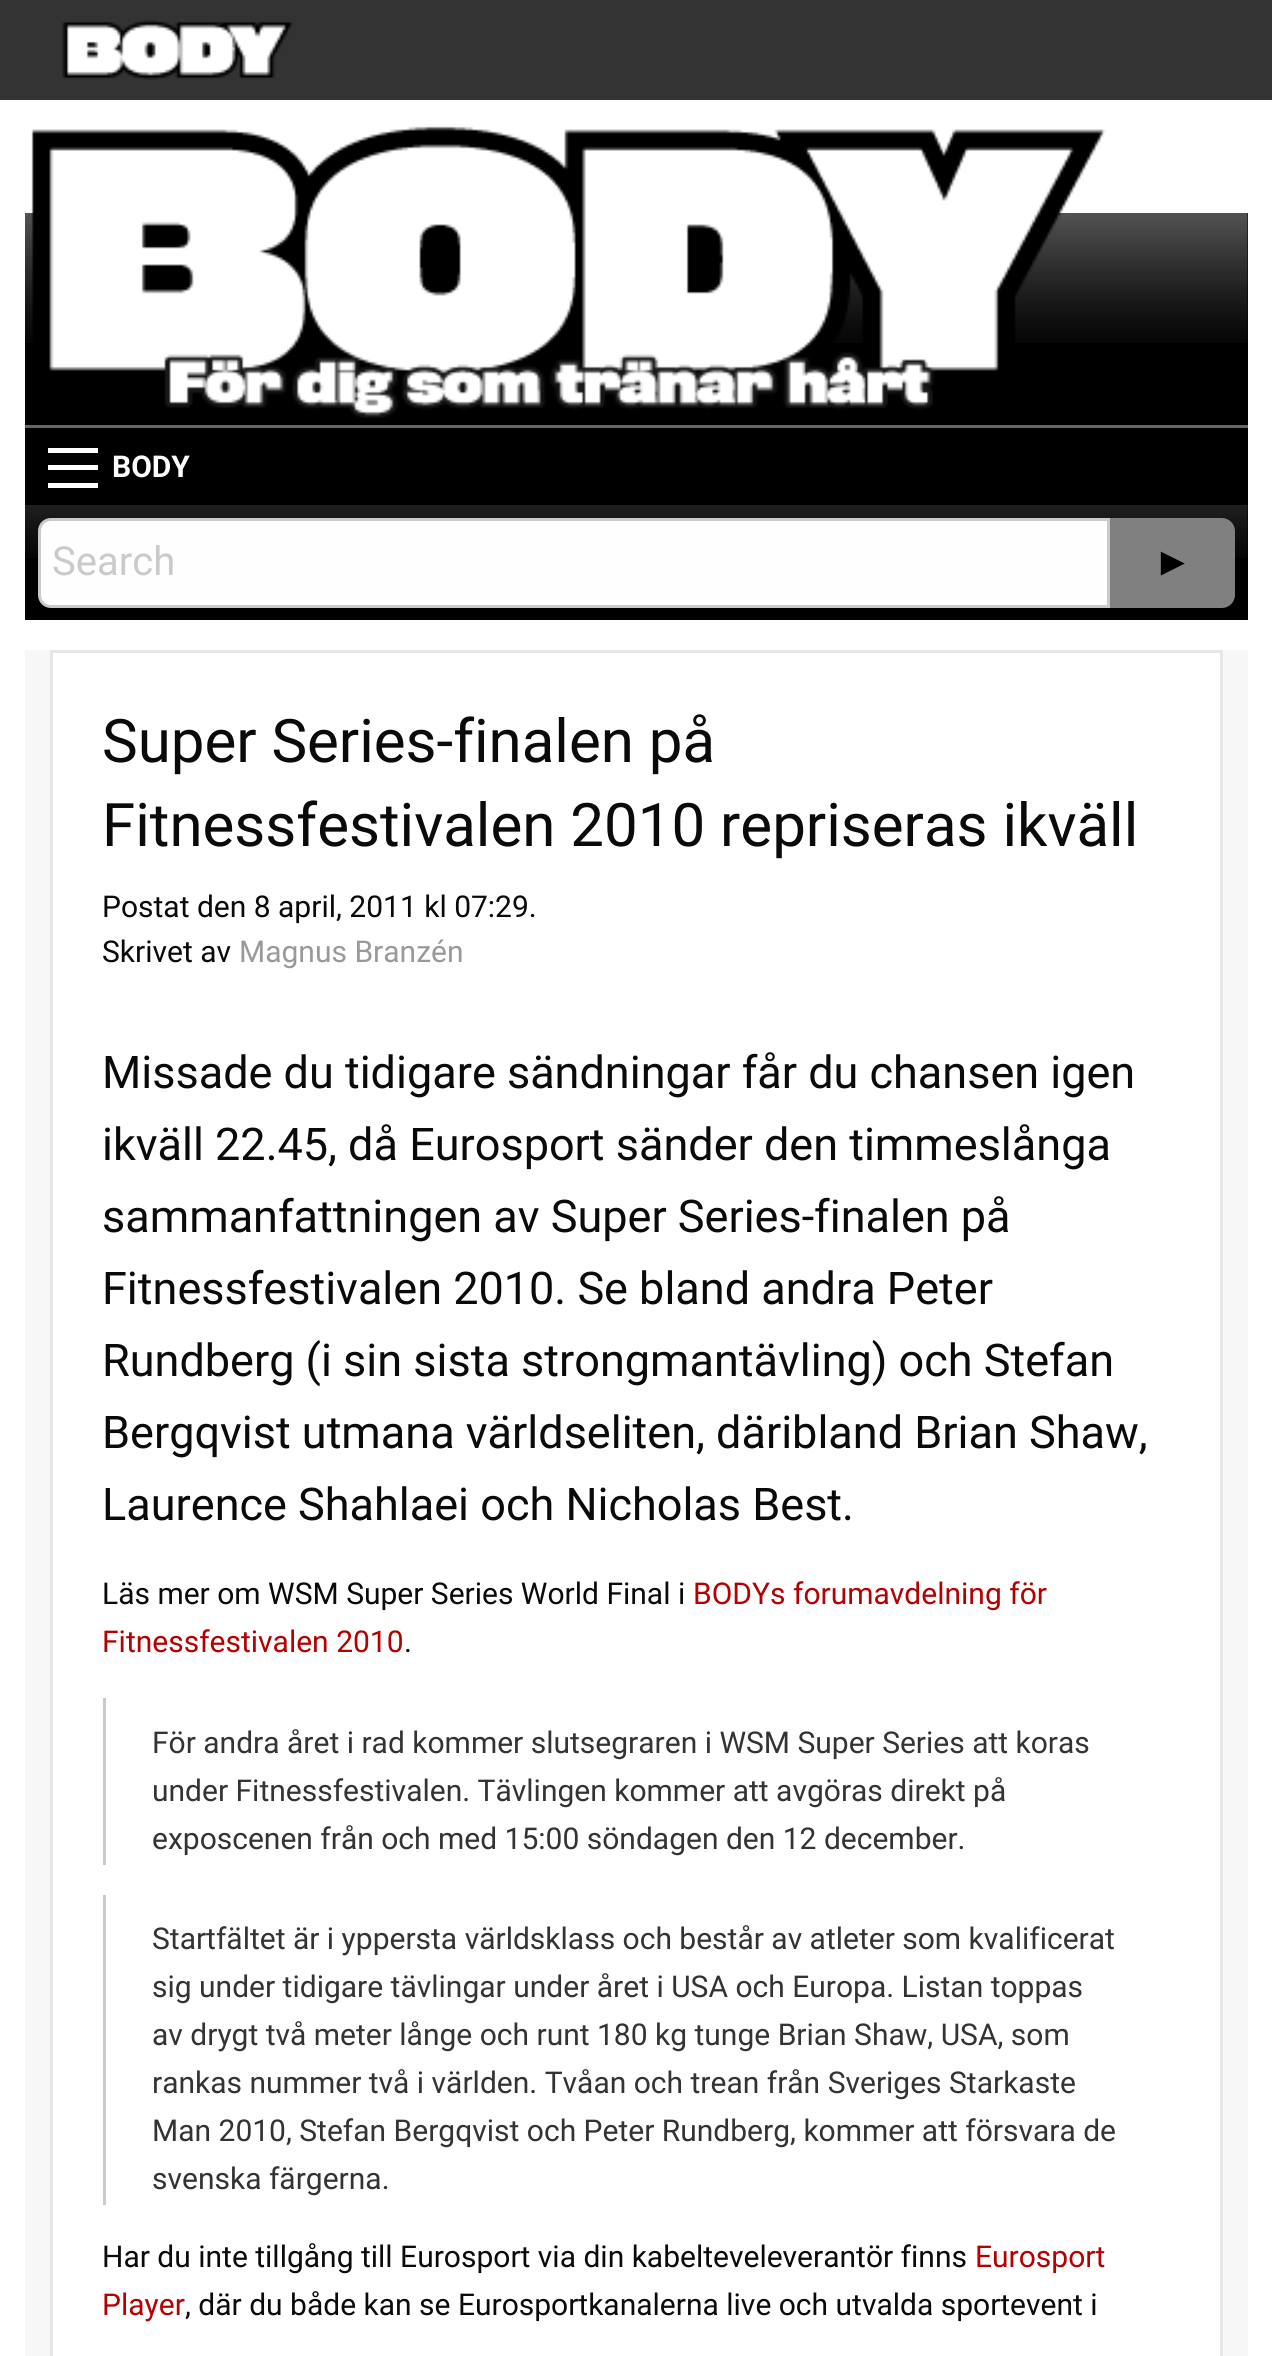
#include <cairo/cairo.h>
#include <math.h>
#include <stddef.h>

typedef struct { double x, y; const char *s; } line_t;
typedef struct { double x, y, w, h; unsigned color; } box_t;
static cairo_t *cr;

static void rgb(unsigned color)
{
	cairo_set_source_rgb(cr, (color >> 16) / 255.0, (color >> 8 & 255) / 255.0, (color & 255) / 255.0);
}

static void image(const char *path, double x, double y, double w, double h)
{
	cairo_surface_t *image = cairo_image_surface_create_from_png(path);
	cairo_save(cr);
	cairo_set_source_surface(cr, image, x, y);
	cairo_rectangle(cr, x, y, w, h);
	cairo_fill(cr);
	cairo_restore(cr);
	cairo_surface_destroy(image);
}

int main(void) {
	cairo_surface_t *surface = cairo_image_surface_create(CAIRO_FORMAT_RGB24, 1272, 2356);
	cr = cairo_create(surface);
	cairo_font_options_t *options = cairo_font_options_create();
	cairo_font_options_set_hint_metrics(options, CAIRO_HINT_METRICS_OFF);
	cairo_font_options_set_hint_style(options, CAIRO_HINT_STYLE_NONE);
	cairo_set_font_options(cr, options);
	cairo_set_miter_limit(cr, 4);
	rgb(0xffffff);
	cairo_paint(cr);
	rgb(0x333333);
	cairo_rectangle(cr, 0, 0, 1272, 100);
	cairo_fill(cr);
	image("img/1.png", 62, 20, 231, 60);
	rgb(0x000000);
	cairo_rectangle(cr, 25, 213, 1223, 212);
	cairo_fill(cr);
	image("img/2.png", 25, 213, 1223, 130);
	image("img/3.png", 31, 126, 1075, 292);
	cairo_rectangle(cr, 25, 428, 1223, 192);
	cairo_fill(cr);
	image("img/4.png", 25, 505, 1223, 53);
	{
		static const box_t items[] = {
			{25, 425, 1223, 3, 0x666666},
			{48, 483, 50, 5, 0xfefefe},
			{48, 465, 50, 5, 0xfefefe},
			{48, 448, 50, 5, 0xfefefe},
		};
		for (size_t i = 0; i < sizeof items / sizeof *items; i++) {
			rgb(items[i].color);
			cairo_rectangle(cr, items[i].x, items[i].y, items[i].w, items[i].h);
			cairo_fill(cr);
		}
	}
	cairo_new_path(cr);
	cairo_move_to(cr, 51, 519.5);
	cairo_line_to(cr, 1108.5, 519.5);
	cairo_line_to(cr, 1108.5, 606.5);
	cairo_line_to(cr, 51, 606.5);
	cairo_curve_to(cr, 44.5, 606.5, 39.5, 601.5, 39.5, 595);
	cairo_line_to(cr, 39.5, 531);
	cairo_curve_to(cr, 39.5, 524.5, 44.5, 519.5, 51, 519.5);
	cairo_close_path(cr);
	cairo_fill_preserve(cr);
	rgb(0xcacaca);
	cairo_set_line_width(cr, 3);
	cairo_stroke(cr);
	rgb(0x808080);
	cairo_new_path(cr);
	cairo_move_to(cr, 1110, 518);
	cairo_line_to(cr, 1222, 518);
	cairo_curve_to(cr, 1229, 518, 1235, 524, 1235, 531);
	cairo_line_to(cr, 1235, 595);
	cairo_curve_to(cr, 1235, 602, 1229, 608, 1222, 608);
	cairo_line_to(cr, 1110, 608);
	cairo_close_path(cr);
	cairo_fill(cr);
	rgb(0xf7f7f7);
	cairo_rectangle(cr, 25, 650, 1223, 1706);
	cairo_fill(cr);
	rgb(0xffffff);
	cairo_rectangle(cr, 51.5, 651.5, 1170, 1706);
	cairo_fill_preserve(cr);
	rgb(0xe6e6e6);
	cairo_stroke(cr);
	rgb(0xcacaca);
	cairo_rectangle(cr, 103, 1698, 3, 167);
	cairo_fill(cr);
	cairo_rectangle(cr, 103, 1895, 3, 310);
	cairo_fill(cr);
	cairo_select_font_face(cr, "Roboto", CAIRO_FONT_SLANT_NORMAL, CAIRO_FONT_WEIGHT_BOLD);
	cairo_set_font_size(cr, 30);
	rgb(0xffffff);
	cairo_move_to(cr, 112, 477);
	cairo_show_text(cr, "BODY");
	cairo_select_font_face(cr, "Roboto", CAIRO_FONT_SLANT_NORMAL, CAIRO_FONT_WEIGHT_NORMAL);
	cairo_set_font_size(cr, 40);
	rgb(0xcacaca);
	cairo_move_to(cr, 52, 575);
	cairo_show_text(cr, "Search");
	cairo_select_font_face(cr, "Liberation Sans", CAIRO_FONT_SLANT_NORMAL, CAIRO_FONT_WEIGHT_NORMAL);
	rgb(0x000000);
	cairo_move_to(cr, 1153, 575);
	cairo_show_text(cr, "►");
	cairo_select_font_face(cr, "Roboto", CAIRO_FONT_SLANT_NORMAL, CAIRO_FONT_WEIGHT_NORMAL);
	cairo_set_font_size(cr, 60);
	rgb(0x0a0a0a);
	cairo_move_to(cr, 102, 762);
	cairo_show_text(cr, "Super Series-finalen på");
	cairo_move_to(cr, 102, 846);
	cairo_show_text(cr, "Fitnessfestivalen 2010 repriseras ikväll");
	cairo_set_font_size(cr, 30);
	cairo_move_to(cr, 102, 917);
	cairo_show_text(cr, "Postat den 8 april, 2011 kl 07:29.");
	cairo_move_to(cr, 102, 962);
	cairo_show_text(cr, "Skrivet av");
	rgb(0x999999);
	cairo_move_to(cr, 239, 962);
	cairo_show_text(cr, "Magnus Branzén");
	cairo_set_font_size(cr, 45);
	rgb(0x0a0a0a);
	{
		static const line_t items[] = {
			{102, 1088, "Missade du tidigare sändningar får du chansen igen"},
			{102, 1160, "ikväll 22.45, då Eurosport sänder den timmeslånga"},
			{102, 1232, "sammanfattningen av Super Series-finalen på"},
			{102, 1304, "Fitnessfestivalen 2010. Se bland andra Peter"},
			{102, 1376, "Rundberg (i sin sista strongmantävling) och Stefan"},
			{102, 1448, "Bergqvist utmana världseliten, däribland Brian Shaw,"},
			{102, 1520, "Laurence Shahlaei och Nicholas Best."},
		};
		for (size_t i = 0; i < sizeof items / sizeof *items; i++) {
			cairo_move_to(cr, items[i].x, items[i].y);
			cairo_show_text(cr, items[i].s);
		}
	}
	cairo_set_font_size(cr, 30);
	cairo_move_to(cr, 102, 1604);
	cairo_show_text(cr, "Läs mer om WSM Super Series World Final i");
	rgb(0xb30000);
	cairo_move_to(cr, 693, 1604);
	cairo_show_text(cr, "BODYs forumavdelning för");
	cairo_move_to(cr, 102, 1652);
	cairo_show_text(cr, "Fitnessfestivalen 2010");
	rgb(0x0a0a0a);
	cairo_move_to(cr, 404, 1652);
	cairo_show_text(cr, ".");
	rgb(0x333333);
	{
		static const line_t items[] = {
			{152, 1753, "För andra året i rad kommer slutsegraren i WSM Super Series att koras"},
			{152, 1801, "under Fitnessfestivalen. Tävlingen kommer att avgöras direkt på"},
			{152, 1849, "exposcenen från och med 15:00 söndagen den 12 december."},
			{152, 1949, "Startfältet är i yppersta världsklass och består av atleter som kvalificerat"},
			{152, 1997, "sig under tidigare tävlingar under året i USA och Europa. Listan toppas"},
			{152, 2045, "av drygt två meter långe och runt 180 kg tunge Brian Shaw, USA, som"},
			{152, 2093, "rankas nummer två i världen. Tvåan och trean från Sveriges Starkaste"},
			{152, 2141, "Man 2010, Stefan Bergqvist och Peter Rundberg, kommer att försvara de"},
			{152, 2189, "svenska färgerna."},
		};
		for (size_t i = 0; i < sizeof items / sizeof *items; i++) {
			cairo_move_to(cr, items[i].x, items[i].y);
			cairo_show_text(cr, items[i].s);
		}
	}
	rgb(0x0a0a0a);
	cairo_move_to(cr, 102, 2267);
	cairo_show_text(cr, "Har du inte tillgång till Eurosport via din kabelteveleverantör finns");
	rgb(0xb30000);
	cairo_move_to(cr, 975, 2267);
	cairo_show_text(cr, "Eurosport");
	cairo_move_to(cr, 102, 2315);
	cairo_show_text(cr, "Player");
	rgb(0x0a0a0a);
	cairo_move_to(cr, 185, 2315);
	cairo_show_text(cr, ", där du både kan se Eurosportkanalerna live och utvalda sportevent i");
	cairo_surface_write_to_png(surface, "page.png");
	cairo_font_options_destroy(options);
	cairo_destroy(cr);
	cairo_surface_destroy(surface);
	return 0;
}
